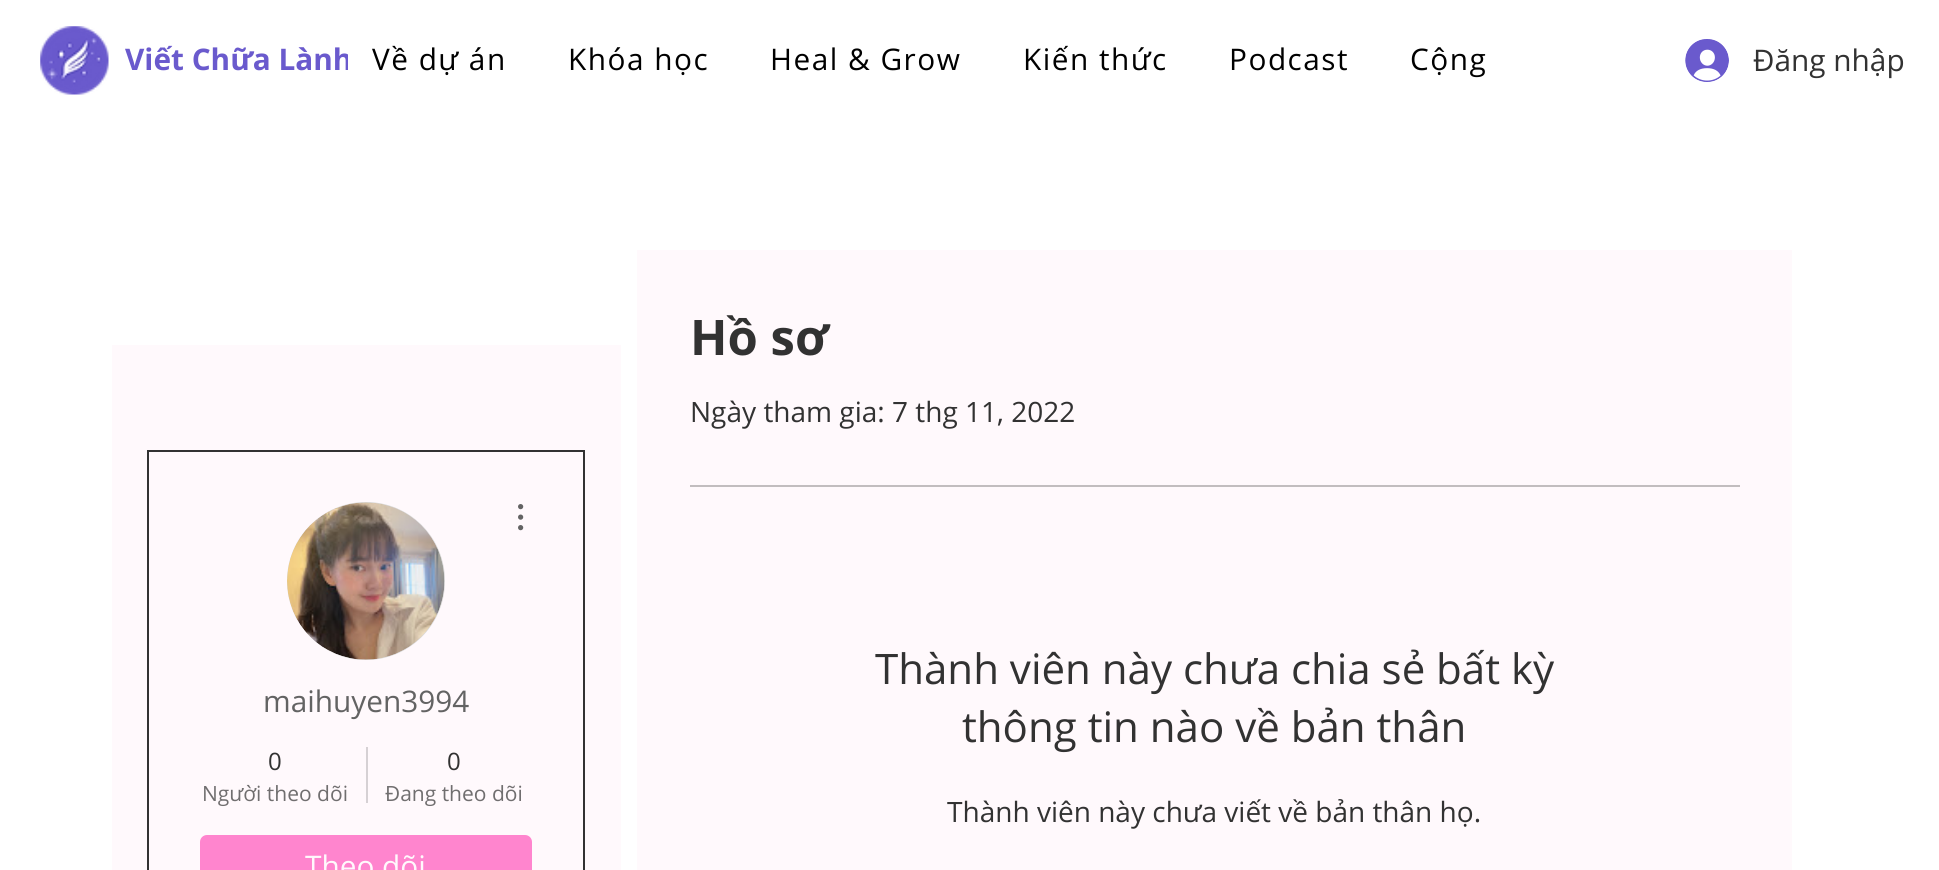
#include <cairo/cairo.h>
#include <math.h>
#include <stddef.h>

typedef struct { double x, y; const char *s; } line_t;
static cairo_t *cr;

static void rgb(unsigned color)
{
	cairo_set_source_rgb(cr, (color >> 16) / 255.0, (color >> 8 & 255) / 255.0, (color & 255) / 255.0);
}

static void tracked(double x, double y, const char *s, double letter, double word)
{
	cairo_move_to(cr, x, y);
	while (*s) {
		char ch[5] = {0};
		int n = 0;
		do ch[n++] = *s++; while ((*s & 0xC0) == 0x80);
		cairo_show_text(cr, ch);
		cairo_rel_move_to(cr, letter + word * (*ch == ' '), 0);
	}
}

static void rrect(double x, double y, double w, double h, double r)
{
	cairo_new_sub_path(cr);
	cairo_arc(cr, x + w - r, y + h - r, r, 0, M_PI / 2);
	cairo_arc(cr, x + r, y + h - r, r, M_PI / 2, M_PI);
	cairo_arc(cr, x + r, y + r, r, M_PI, 1.5 * M_PI);
	cairo_arc(cr, x + w - r, y + r, r, 1.5 * M_PI, 2 * M_PI);
	cairo_close_path(cr);
}

static void image(const char *path, double x, double y, double w, double h)
{
	cairo_surface_t *image = cairo_image_surface_create_from_png(path);
	cairo_save(cr);
	cairo_set_source_surface(cr, image, x, y);
	cairo_rectangle(cr, x, y, w, h);
	cairo_fill(cr);
	cairo_restore(cr);
	cairo_surface_destroy(image);
}

int main(void) {
	cairo_surface_t *surface = cairo_image_surface_create(CAIRO_FORMAT_RGB24, 1939, 870);
	cr = cairo_create(surface);
	cairo_font_options_t *options = cairo_font_options_create();
	cairo_font_options_set_hint_metrics(options, CAIRO_HINT_METRICS_OFF);
	cairo_font_options_set_hint_style(options, CAIRO_HINT_STYLE_NONE);
	cairo_set_font_options(cr, options);
	cairo_set_miter_limit(cr, 4);
	rgb(0xffffff);
	cairo_paint(cr);
	image("img/1.png", 40, 26, 69, 69);
	image("img/2.png", 1685, 39, 44, 43);
	rgb(0xfff9fc);
	cairo_rectangle(cr, 112, 345, 509, 525);
	cairo_fill(cr);
	cairo_rectangle(cr, 148, 451, 436, 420);
	rgb(0x323232);
	cairo_stroke(cr);
	rgb(0xd8d8d8);
	cairo_arc(cr, 366, 581, 79, 0, 2 * M_PI);
	cairo_fill(cr);
	image("img/3.png", 287, 502, 158, 158);
	image("img/4.png", 518, 504, 6, 27);
	rgb(0xd6d1d4);
	cairo_rectangle(cr, 366, 747, 2, 56);
	cairo_fill(cr);
	rgb(0xff85ce);
	rrect(201, 836, 330, 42, 6);
	cairo_fill_preserve(cr);
	cairo_stroke(cr);
	rgb(0xfff9fc);
	cairo_rectangle(cr, 637, 250, 1155, 620);
	cairo_fill(cr);
	rgb(0xc2bdbf);
	cairo_rectangle(cr, 690, 485, 1050, 2);
	cairo_fill(cr);
	cairo_select_font_face(cr, "Open Sans", CAIRO_FONT_SLANT_NORMAL, CAIRO_FONT_WEIGHT_BOLD);
	cairo_set_font_size(cr, 29.75);
	rgb(0x6a5acd);
	cairo_move_to(cr, 125, 70);
	cairo_show_text(cr, "Viết Chữa Lành");
	rgb(0xffffff);
	cairo_rectangle(cr, 348, 54, 3, 16);
	cairo_fill(cr);
	cairo_select_font_face(cr, "Open Sans", CAIRO_FONT_SLANT_NORMAL, CAIRO_FONT_WEIGHT_NORMAL);
	rgb(0x000000);
	{
		static const line_t items[] = {
			{372, 70, "Về dự án"},
			{568, 70, "Khóa học"},
			{770, 70, "Heal & Grow"},
			{1023, 70, "Kiến thức"},
			{1229, 70, "Podcast"},
			{1410, 70, "Cộng"},
		};
		for (size_t i = 0; i < sizeof items / sizeof *items; i++) {
			tracked(items[i].x, items[i].y, items[i].s, 1.5, 0);
		}
	}
	rgb(0x323232);
	cairo_move_to(cr, 1753, 71);
	cairo_show_text(cr, "Đăng nhập");
	rgb(0x636363);
	cairo_move_to(cr, 263, 712);
	cairo_show_text(cr, "maihuyen3994");
	cairo_set_font_size(cr, 24);
	rgb(0x323232);
	cairo_move_to(cr, 268, 770);
	cairo_show_text(cr, "0");
	cairo_set_font_size(cr, 21);
	rgb(0x706e6f);
	cairo_move_to(cr, 202, 801);
	cairo_show_text(cr, "Người theo dõi");
	cairo_set_font_size(cr, 24);
	rgb(0x323232);
	cairo_move_to(cr, 447, 770);
	cairo_show_text(cr, "0");
	cairo_set_font_size(cr, 21);
	rgb(0x706e6f);
	cairo_move_to(cr, 385, 801);
	cairo_show_text(cr, "Đang theo dõi");
	cairo_set_font_size(cr, 29.75);
	rgb(0xfff9fc);
	cairo_move_to(cr, 305, 877);
	cairo_show_text(cr, "Theo dõi");
	cairo_select_font_face(cr, "Open Sans", CAIRO_FONT_SLANT_NORMAL, CAIRO_FONT_WEIGHT_BOLD);
	cairo_set_font_size(cr, 49);
	rgb(0x323232);
	cairo_move_to(cr, 690, 355);
	cairo_show_text(cr, "Hồ sơ");
	cairo_select_font_face(cr, "Open Sans", CAIRO_FONT_SLANT_NORMAL, CAIRO_FONT_WEIGHT_NORMAL);
	cairo_set_font_size(cr, 28);
	cairo_move_to(cr, 690, 422);
	cairo_show_text(cr, "Ngày tham gia: 7 thg 11, 2022");
	cairo_set_font_size(cr, 42);
	cairo_move_to(cr, 875, 684);
	cairo_show_text(cr, "Thành viên này chưa chia sẻ bất kỳ");
	cairo_move_to(cr, 962, 742);
	cairo_show_text(cr, "thông tin nào về bản thân");
	cairo_set_font_size(cr, 28);
	cairo_move_to(cr, 947, 822);
	cairo_show_text(cr, "Thành viên này chưa viết về bản thân họ.");
	cairo_surface_write_to_png(surface, "page.png");
	cairo_font_options_destroy(options);
	cairo_destroy(cr);
	cairo_surface_destroy(surface);
	return 0;
}
